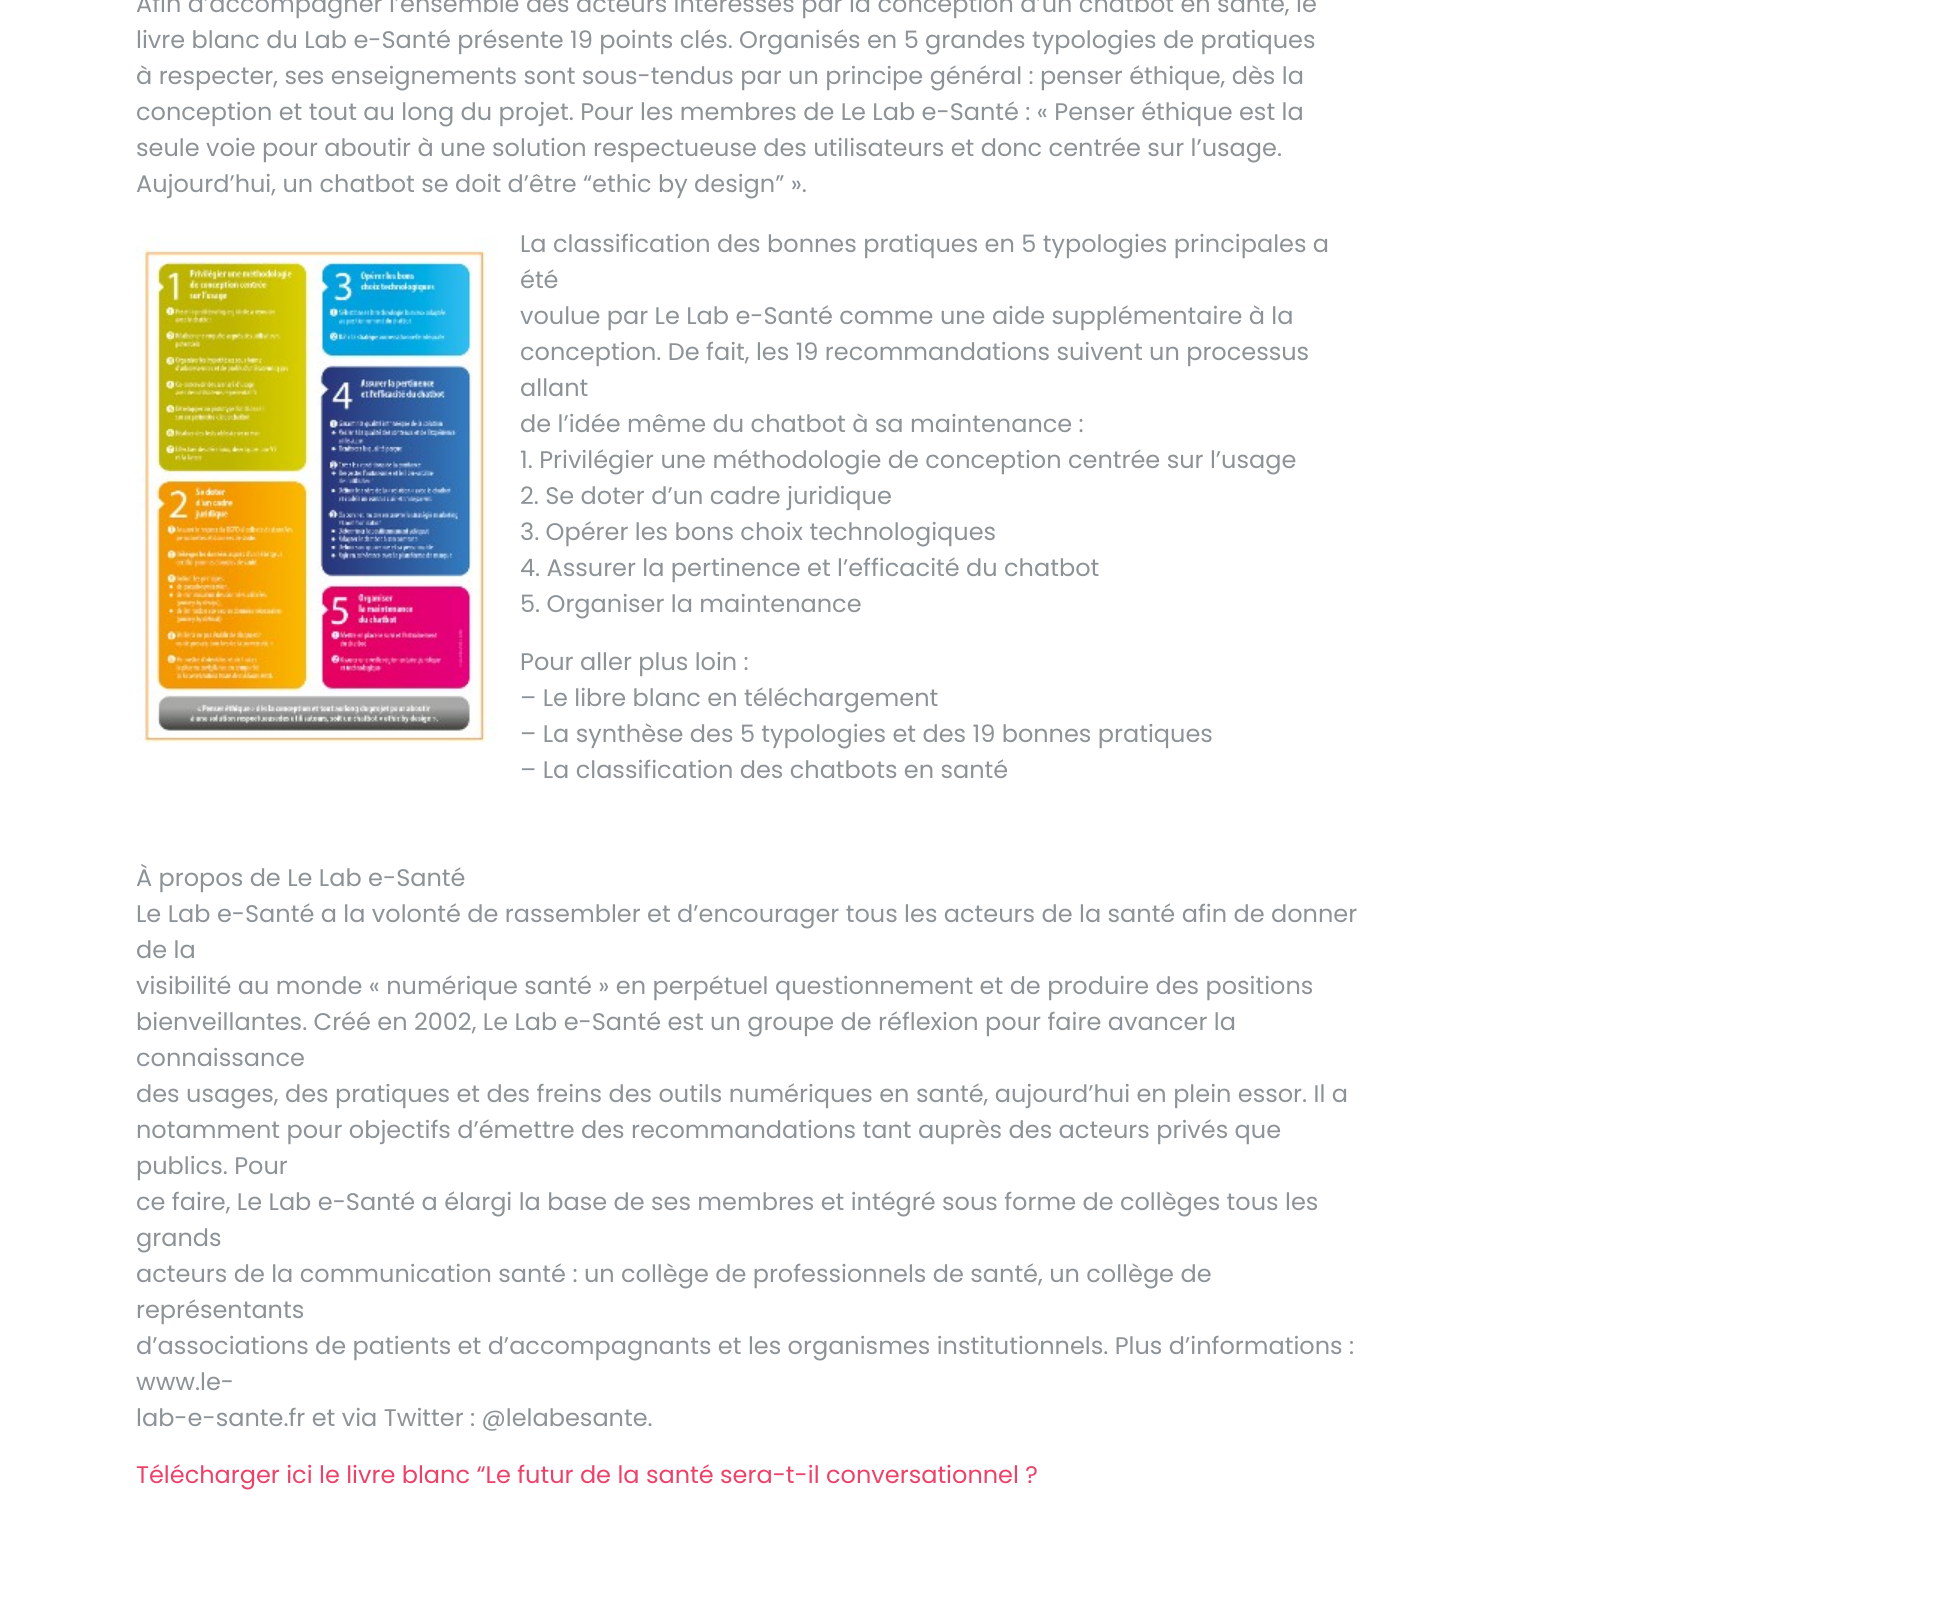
#include <cairo/cairo.h>
#include <math.h>
#include <stddef.h>

typedef struct { double x, y; const char *s; } line_t;
static cairo_t *cr;

static void rgb(unsigned color)
{
	cairo_set_source_rgb(cr, (color >> 16) / 255.0, (color >> 8 & 255) / 255.0, (color & 255) / 255.0);
}

static void image(const char *path, double x, double y, double w, double h)
{
	cairo_surface_t *image = cairo_image_surface_create_from_png(path);
	cairo_save(cr);
	cairo_set_source_surface(cr, image, x, y);
	cairo_rectangle(cr, x, y, w, h);
	cairo_fill(cr);
	cairo_restore(cr);
	cairo_surface_destroy(image);
}

int main(void) {
	cairo_surface_t *surface = cairo_image_surface_create(CAIRO_FORMAT_RGB24, 1951, 1601);
	cr = cairo_create(surface);
	cairo_font_options_t *options = cairo_font_options_create();
	cairo_font_options_set_hint_metrics(options, CAIRO_HINT_METRICS_OFF);
	cairo_font_options_set_hint_style(options, CAIRO_HINT_STYLE_NONE);
	cairo_set_font_options(cr, options);
	cairo_set_miter_limit(cr, 4);
	rgb(0xffffff);
	cairo_paint(cr);
	image("img/1.png", 136, 237, 361, 506);
	cairo_select_font_face(cr, "Poppins", CAIRO_FONT_SLANT_NORMAL, CAIRO_FONT_WEIGHT_NORMAL);
	cairo_set_font_size(cr, 24);
	rgb(0x8d9297);
	{
		static const line_t items[] = {
			{136, 12, "Afin d’accompagner l’ensemble des acteurs intéressés par la conception d’un chatbot en santé, le"},
			{136, 48, "livre blanc du Lab e-Santé présente 19 points clés. Organisés en 5 grandes typologies de pratiques"},
			{136, 84, "à respecter, ses enseignements sont sous-tendus par un principe général : penser éthique, dès la"},
			{136, 120, "conception et tout au long du projet. Pour les membres de Le Lab e-Santé : « Penser éthique est la"},
			{136, 156, "seule voie pour aboutir à une solution respectueuse des utilisateurs et donc centrée sur l’usage."},
			{136, 192, "Aujourd’hui, un chatbot se doit d’être “ethic by design” »."},
			{520, 252, "La classification des bonnes pratiques en 5 typologies principales a"},
			{520, 288, "été"},
			{520, 324, "voulue par Le Lab e-Santé comme une aide supplémentaire à la"},
			{520, 360, "conception. De fait, les 19 recommandations suivent un processus"},
			{520, 396, "allant"},
			{520, 432, "de l’idée même du chatbot à sa maintenance :"},
			{520, 468, "1. Privilégier une méthodologie de conception centrée sur l’usage"},
			{520, 504, "2. Se doter d’un cadre juridique"},
			{520, 540, "3. Opérer les bons choix technologiques"},
			{520, 576, "4. Assurer la pertinence et l’efficacité du chatbot"},
			{520, 612, "5. Organiser la maintenance"},
			{520, 670, "Pour aller plus loin :"},
			{520, 706, "– Le libre blanc en téléchargement"},
			{520, 742, "– La synthèse des 5 typologies et des 19 bonnes pratiques"},
			{520, 778, "– La classification des chatbots en santé"},
			{136, 886, "À propos de Le Lab e-Santé"},
			{136, 922, "Le Lab e-Santé a la volonté de rassembler et d’encourager tous les acteurs de la santé afin de donner"},
			{136, 958, "de la"},
			{136, 994, "visibilité au monde « numérique santé » en perpétuel questionnement et de produire des positions"},
			{136, 1030, "bienveillantes. Créé en 2002, Le Lab e-Santé est un groupe de réflexion pour faire avancer la"},
			{136, 1066, "connaissance"},
			{136, 1102, "des usages, des pratiques et des freins des outils numériques en santé, aujourd’hui en plein essor. Il a"},
			{136, 1138, "notamment pour objectifs d’émettre des recommandations tant auprès des acteurs privés que"},
			{136, 1174, "publics. Pour"},
			{136, 1210, "ce faire, Le Lab e-Santé a élargi la base de ses membres et intégré sous forme de collèges tous les"},
			{136, 1246, "grands"},
			{136, 1282, "acteurs de la communication santé : un collège de professionnels de santé, un collège de"},
			{136, 1318, "représentants"},
			{136, 1354, "d’associations de patients et d’accompagnants et les organismes institutionnels. Plus d’informations :"},
			{136, 1390, "www.le-"},
			{136, 1426, "lab-e-sante.fr et via Twitter : @lelabesante."},
		};
		for (size_t i = 0; i < sizeof items / sizeof *items; i++) {
			cairo_move_to(cr, items[i].x, items[i].y);
			cairo_show_text(cr, items[i].s);
		}
	}
	rgb(0xec426a);
	cairo_move_to(cr, 136, 1483);
	cairo_show_text(cr, "Télécharger ici le livre blanc “Le futur de la santé sera-t-il conversationnel ?");
	cairo_surface_write_to_png(surface, "page.png");
	cairo_font_options_destroy(options);
	cairo_destroy(cr);
	cairo_surface_destroy(surface);
	return 0;
}
